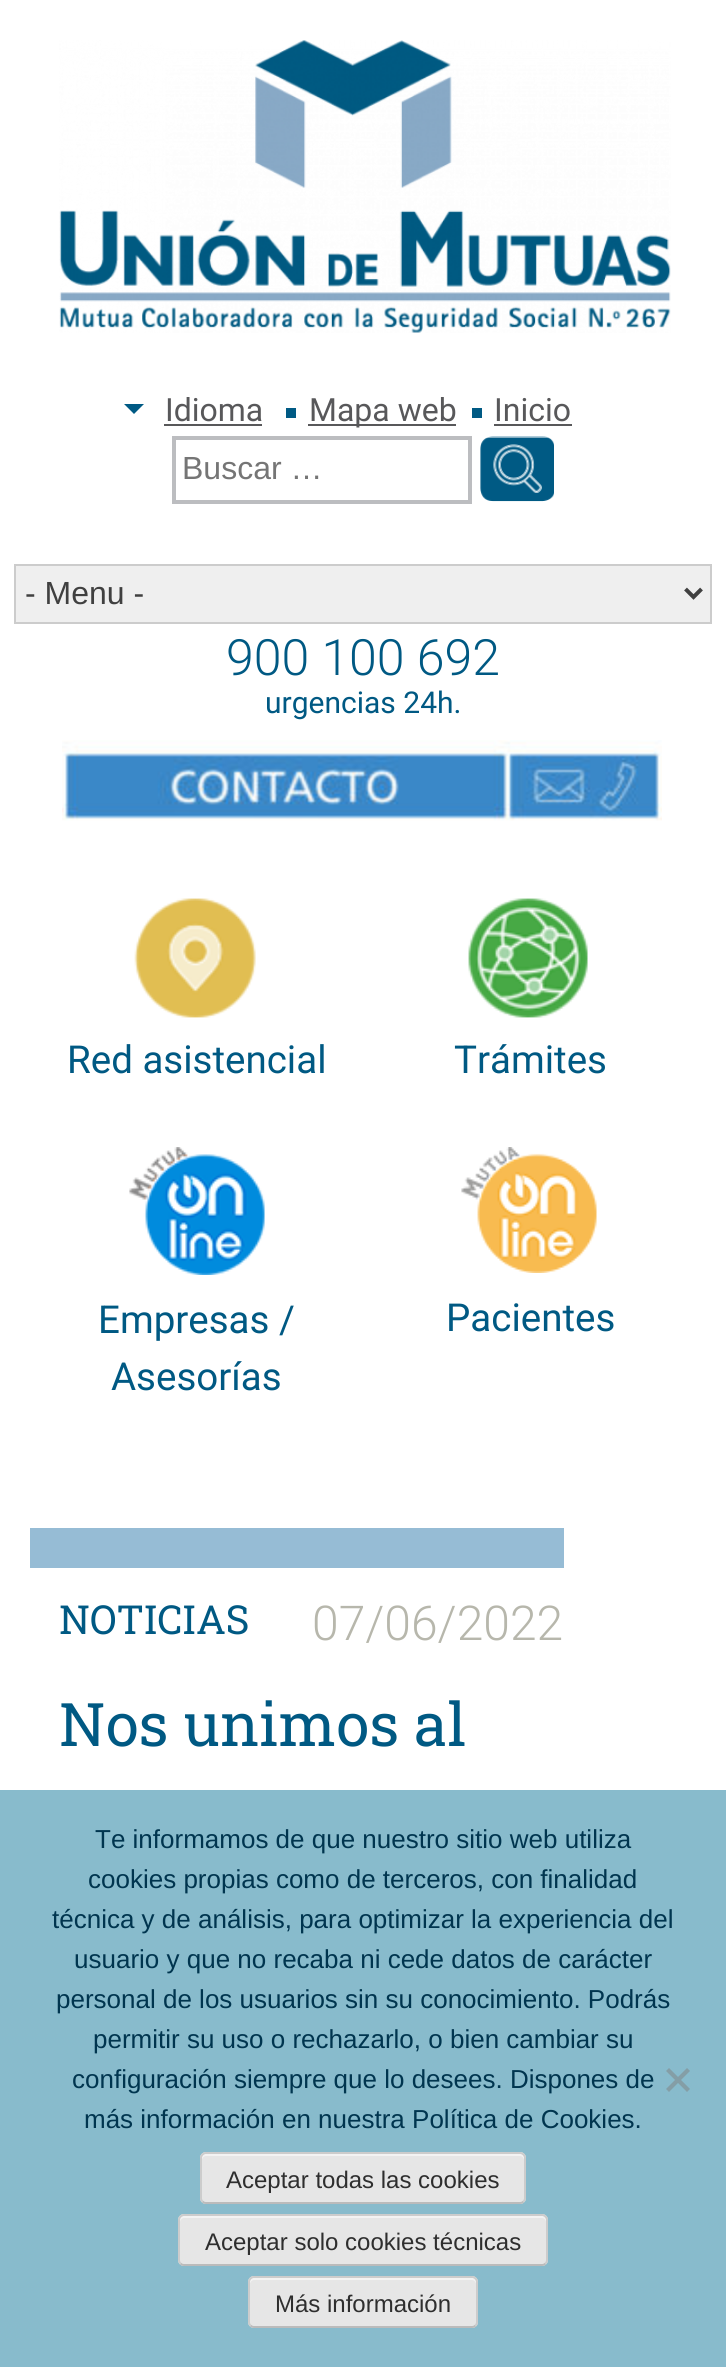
#include <cairo/cairo.h>
#include <math.h>
#include <stddef.h>

typedef struct { double x, y; const char *s; } line_t;
typedef struct { double x, y, w, h; unsigned color; } box_t;
static cairo_t *cr;

static void rgb(unsigned color)
{
	cairo_set_source_rgb(cr, (color >> 16) / 255.0, (color >> 8 & 255) / 255.0, (color & 255) / 255.0);
}

static void rrect(double x, double y, double w, double h, double r)
{
	cairo_new_sub_path(cr);
	cairo_arc(cr, x + w - r, y + h - r, r, 0, M_PI / 2);
	cairo_arc(cr, x + r, y + h - r, r, M_PI / 2, M_PI);
	cairo_arc(cr, x + r, y + r, r, M_PI, 1.5 * M_PI);
	cairo_arc(cr, x + w - r, y + r, r, 1.5 * M_PI, 2 * M_PI);
	cairo_close_path(cr);
}

static void image(const char *path, double x, double y, double w, double h)
{
	cairo_surface_t *image = cairo_image_surface_create_from_png(path);
	cairo_save(cr);
	cairo_set_source_surface(cr, image, x, y);
	cairo_rectangle(cr, x, y, w, h);
	cairo_fill(cr);
	cairo_restore(cr);
	cairo_surface_destroy(image);
}

int main(void) {
	cairo_surface_t *surface = cairo_image_surface_create(CAIRO_FORMAT_RGB24, 726, 2367);
	cr = cairo_create(surface);
	cairo_font_options_t *options = cairo_font_options_create();
	cairo_font_options_set_hint_metrics(options, CAIRO_HINT_METRICS_OFF);
	cairo_font_options_set_hint_style(options, CAIRO_HINT_STYLE_NONE);
	cairo_set_font_options(cr, options);
	cairo_set_miter_limit(cr, 4);
	rgb(0xffffff);
	cairo_paint(cr);
	image("img/1.png", 59, 40, 612, 293);
	rgb(0x005a84);
	cairo_new_path(cr);
	cairo_move_to(cr, 124, 404);
	cairo_line_to(cr, 144, 404);
	cairo_line_to(cr, 134, 414);
	cairo_close_path(cr);
	cairo_fill(cr);
	{
		static const box_t items[] = {
			{164, 424, 98, 2, 0x58585a},
			{286, 408, 10, 10, 0x005a84},
			{308, 424, 148, 2, 0x58585a},
			{472, 408, 10, 10, 0x005a84},
			{494, 424, 78, 2, 0x58585a},
		};
		for (size_t i = 0; i < sizeof items / sizeof *items; i++) {
			rgb(items[i].color);
			cairo_rectangle(cr, items[i].x, items[i].y, items[i].w, items[i].h);
			cairo_fill(cr);
		}
	}
	cairo_rectangle(cr, 174, 438, 296, 64);
	rgb(0xbcbdc0);
	cairo_set_line_width(cr, 4);
	cairo_stroke(cr);
	image("img/2.png", 480, 436, 74, 66);
	cairo_set_source_rgba(cr, 1, 1, 1, 0.5);
	cairo_new_path(cr);
	cairo_move_to(cr, 486, 438);
	cairo_line_to(cr, 548, 438);
	cairo_curve_to(cr, 551, 438, 554, 441, 554, 444);
	cairo_curve_to(cr, 554, 434, 546, 436, 538, 436);
	cairo_line_to(cr, 496, 436);
	cairo_curve_to(cr, 488, 436, 480, 434, 480, 444);
	cairo_curve_to(cr, 480, 441, 483, 438, 486, 438);
	cairo_close_path(cr);
	cairo_fill(cr);
	rgb(0xefefef);
	cairo_rectangle(cr, 15, 565, 696, 58);
	cairo_fill_preserve(cr);
	rgb(0xcccccc);
	cairo_set_line_width(cr, 2);
	cairo_stroke(cr);
	cairo_new_path(cr);
	cairo_move_to(cr, 685.5, 589);
	cairo_line_to(cr, 693.5, 597);
	cairo_line_to(cr, 701.5, 589);
	rgb(0x404040);
	cairo_set_line_width(cr, 4);
	cairo_stroke(cr);
	image("img/3.png", 62, 740, 600, 81);
	image("img/4.png", 134, 898, 122, 120);
	image("img/5.png", 468, 898, 120, 120);
	image("img/6.png", 129, 1147, 136, 128);
	image("img/7.png", 461, 1147, 136, 126);
	rgb(0x96bcd5);
	cairo_rectangle(cr, 30, 1528, 534, 40);
	cairo_fill(cr);
	rgb(0x88bbcc);
	cairo_rectangle(cr, 0, 1790, 726, 577);
	cairo_fill(cr);
	rgb(0x849ea6);
	cairo_new_path(cr);
	cairo_move_to(cr, 687, 2068);
	cairo_line_to(cr, 690, 2071);
	cairo_line_to(cr, 669, 2092);
	cairo_line_to(cr, 666, 2089);
	cairo_close_path(cr);
	cairo_fill(cr);
	cairo_new_path(cr);
	cairo_move_to(cr, 666, 2071);
	cairo_line_to(cr, 669, 2068);
	cairo_line_to(cr, 690, 2089);
	cairo_line_to(cr, 687, 2092);
	cairo_close_path(cr);
	cairo_fill(cr);
	rgb(0xe6e6e6);
	rrect(200, 2152, 326, 52, 6);
	cairo_fill(cr);
	rgb(0xf3f3f3);
	cairo_new_path(cr);
	cairo_move_to(cr, 206, 2156);
	cairo_line_to(cr, 520, 2156);
	cairo_curve_to(cr, 522, 2156, 524, 2158, 524, 2160);
	cairo_curve_to(cr, 524, 2157, 524, 2154, 520, 2154);
	cairo_line_to(cr, 206, 2154);
	cairo_curve_to(cr, 202, 2154, 202, 2157, 202, 2160);
	cairo_curve_to(cr, 202, 2158, 204, 2156, 206, 2156);
	cairo_close_path(cr);
	cairo_fill(cr);
	cairo_new_path(cr);
	cairo_move_to(cr, 523.5, 2201.5);
	cairo_curve_to(cr, 522.5, 2202.5, 521.5, 2203, 520, 2203);
	cairo_line_to(cr, 206, 2203);
	cairo_curve_to(cr, 204.5, 2203, 203.5, 2202.5, 202.5, 2201.5);
	rgb(0xbbbbbb);
	cairo_set_line_width(cr, 2);
	cairo_stroke(cr);
	cairo_new_path(cr);
	cairo_move_to(cr, 202.5, 2201.5);
	cairo_curve_to(cr, 201.5, 2200.5, 201, 2199.5, 201, 2198);
	cairo_line_to(cr, 201, 2158);
	cairo_curve_to(cr, 201, 2156.5, 201.5, 2155.5, 202.5, 2154.5);
	cairo_curve_to(cr, 203.5, 2153.5, 204.5, 2153, 206, 2153);
	cairo_line_to(cr, 520, 2153);
	cairo_curve_to(cr, 521.5, 2153, 522.5, 2153.5, 523.5, 2154.5);
	cairo_curve_to(cr, 524.5, 2155.5, 525, 2156.5, 525, 2158);
	cairo_line_to(cr, 525, 2198);
	cairo_curve_to(cr, 525, 2199.5, 524.5, 2200.5, 523.5, 2201.5);
	rgb(0xcccccc);
	cairo_stroke(cr);
	rgb(0xe6e6e6);
	rrect(178, 2214, 370, 52, 6);
	cairo_fill(cr);
	rgb(0xf3f3f3);
	cairo_new_path(cr);
	cairo_move_to(cr, 184, 2218);
	cairo_line_to(cr, 542, 2218);
	cairo_curve_to(cr, 544, 2218, 546, 2220, 546, 2222);
	cairo_line_to(cr, 546, 2220);
	cairo_curve_to(cr, 546, 2218, 544, 2216, 542, 2216);
	cairo_line_to(cr, 184, 2216);
	cairo_curve_to(cr, 182, 2216, 180, 2218, 180, 2220);
	cairo_line_to(cr, 180, 2222);
	cairo_curve_to(cr, 180, 2220, 182, 2218, 184, 2218);
	cairo_close_path(cr);
	cairo_fill(cr);
	cairo_new_path(cr);
	cairo_move_to(cr, 545.5, 2263.5);
	cairo_curve_to(cr, 544.5, 2264.5, 543.5, 2265, 542, 2265);
	cairo_line_to(cr, 184, 2265);
	cairo_curve_to(cr, 182.5, 2265, 181.5, 2264.5, 180.5, 2263.5);
	rgb(0xbbbbbb);
	cairo_stroke(cr);
	cairo_new_path(cr);
	cairo_move_to(cr, 180.5, 2263.5);
	cairo_curve_to(cr, 179.5, 2262.5, 179, 2261.5, 179, 2260);
	cairo_line_to(cr, 179, 2220);
	cairo_curve_to(cr, 179, 2218.5, 179.5, 2217.5, 180.5, 2216.5);
	cairo_curve_to(cr, 181.5, 2215.5, 182.5, 2215, 184, 2215);
	cairo_line_to(cr, 542, 2215);
	cairo_curve_to(cr, 543.5, 2215, 544.5, 2215.5, 545.5, 2216.5);
	cairo_curve_to(cr, 546.5, 2217.5, 547, 2218.5, 547, 2220);
	cairo_line_to(cr, 547, 2260);
	cairo_curve_to(cr, 547, 2261.5, 546.5, 2262.5, 545.5, 2263.5);
	rgb(0xcccccc);
	cairo_stroke(cr);
	rgb(0xe6e6e6);
	rrect(248, 2276, 230, 52, 6);
	cairo_fill(cr);
	rgb(0xf3f3f3);
	cairo_new_path(cr);
	cairo_move_to(cr, 254, 2280);
	cairo_line_to(cr, 472, 2280);
	cairo_curve_to(cr, 474, 2280, 476, 2282, 476, 2284);
	cairo_curve_to(cr, 476, 2281, 476, 2279, 473, 2278);
	cairo_line_to(cr, 254, 2278);
	cairo_curve_to(cr, 250, 2278, 250, 2281, 250, 2284);
	cairo_curve_to(cr, 250, 2282, 252, 2280, 254, 2280);
	cairo_close_path(cr);
	cairo_fill(cr);
	cairo_new_path(cr);
	cairo_move_to(cr, 475.5, 2325.5);
	cairo_curve_to(cr, 474.5, 2326.5, 473.5, 2327, 472, 2327);
	cairo_line_to(cr, 254, 2327);
	cairo_curve_to(cr, 252.5, 2327, 251.5, 2326.5, 250.5, 2325.5);
	rgb(0xbbbbbb);
	cairo_stroke(cr);
	cairo_new_path(cr);
	cairo_move_to(cr, 250.5, 2325.5);
	cairo_curve_to(cr, 249.5, 2324.5, 249, 2323.5, 249, 2322);
	cairo_line_to(cr, 249, 2282);
	cairo_curve_to(cr, 249, 2280.5, 249.5, 2279.5, 250.5, 2278.5);
	cairo_curve_to(cr, 251.5, 2277.5, 252.5, 2277, 254, 2277);
	cairo_line_to(cr, 472, 2277);
	cairo_curve_to(cr, 473.5, 2277, 474.5, 2277.5, 475.5, 2278.5);
	cairo_curve_to(cr, 476.5, 2279.5, 477, 2280.5, 477, 2282);
	cairo_line_to(cr, 477, 2322);
	cairo_curve_to(cr, 477, 2323.5, 476.5, 2324.5, 475.5, 2325.5);
	rgb(0xcccccc);
	cairo_stroke(cr);
	cairo_select_font_face(cr, "Roboto", CAIRO_FONT_SLANT_NORMAL, CAIRO_FONT_WEIGHT_NORMAL);
	cairo_set_font_size(cr, 32);
	rgb(0x58585a);
	{
		static const line_t items[] = {
			{165, 421, "Idioma"},
			{309, 421, "Mapa web"},
			{494, 421, "Inicio"},
		};
		for (size_t i = 0; i < sizeof items / sizeof *items; i++) {
			cairo_move_to(cr, items[i].x, items[i].y);
			cairo_show_text(cr, items[i].s);
		}
	}
	cairo_select_font_face(cr, "Liberation Sans", CAIRO_FONT_SLANT_NORMAL, CAIRO_FONT_WEIGHT_NORMAL);
	rgb(0x757575);
	cairo_move_to(cr, 182, 479);
	cairo_show_text(cr, "Buscar …");
	rgb(0x404040);
	cairo_move_to(cr, 25, 604);
	cairo_show_text(cr, "- Menu -");
	cairo_select_font_face(cr, "Roboto Light", CAIRO_FONT_SLANT_NORMAL, CAIRO_FONT_WEIGHT_NORMAL);
	cairo_set_font_size(cr, 50);
	rgb(0x005983);
	cairo_move_to(cr, 226, 675);
	cairo_show_text(cr, "900 100 692");
	cairo_select_font_face(cr, "Roboto", CAIRO_FONT_SLANT_NORMAL, CAIRO_FONT_WEIGHT_NORMAL);
	cairo_set_font_size(cr, 30);
	cairo_move_to(cr, 265, 713);
	cairo_show_text(cr, "urgencias 24h.");
	cairo_set_font_size(cr, 38.5);
	{
		static const line_t items[] = {
			{67, 1073, "Red asistencial"},
			{454, 1073, "Trámites"},
			{98, 1333, "Empresas /"},
			{111, 1390, "Asesorías"},
			{446, 1331, "Pacientes"},
		};
		for (size_t i = 0; i < sizeof items / sizeof *items; i++) {
			cairo_move_to(cr, items[i].x, items[i].y);
			cairo_show_text(cr, items[i].s);
		}
	}
	cairo_select_font_face(cr, "Roboto Slab", CAIRO_FONT_SLANT_NORMAL, CAIRO_FONT_WEIGHT_NORMAL);
	cairo_set_font_size(cr, 40);
	cairo_move_to(cr, 59, 1634);
	cairo_show_text(cr, "NOTICIAS");
	cairo_select_font_face(cr, "Roboto Light", CAIRO_FONT_SLANT_NORMAL, CAIRO_FONT_WEIGHT_NORMAL);
	cairo_set_font_size(cr, 48);
	rgb(0xb7b7ac);
	cairo_move_to(cr, 312, 1640);
	cairo_show_text(cr, "07/06/2022");
	cairo_select_font_face(cr, "Roboto Slab", CAIRO_FONT_SLANT_NORMAL, CAIRO_FONT_WEIGHT_NORMAL);
	cairo_set_font_size(cr, 60);
	rgb(0x005983);
	cairo_move_to(cr, 59, 1746);
	cairo_show_text(cr, "Nos unimos al");
	cairo_select_font_face(cr, "Liberation Sans", CAIRO_FONT_SLANT_NORMAL, CAIRO_FONT_WEIGHT_NORMAL);
	cairo_set_font_size(cr, 26);
	rgb(0x00354f);
	{
		static const line_t items[] = {
			{95, 1848, "Te informamos de que nuestro sitio web utiliza"},
			{88, 1888, "cookies propias como de terceros, con finalidad"},
			{52, 1928, "técnica y de análisis, para optimizar la experiencia del"},
			{74, 1968, "usuario y que no recaba ni cede datos de carácter"},
			{56, 2008, "personal de los usuarios sin su conocimiento. Podrás"},
			{93, 2048, "permitir su uso o rechazarlo, o bien cambiar su"},
			{72, 2088, "configuración siempre que lo desees. Dispones de"},
			{84, 2128, "más información en nuestra Política de Cookies."},
		};
		for (size_t i = 0; i < sizeof items / sizeof *items; i++) {
			cairo_move_to(cr, items[i].x, items[i].y);
			cairo_show_text(cr, items[i].s);
		}
	}
	cairo_set_font_size(cr, 24);
	rgb(0x2e2e2e);
	{
		static const line_t items[] = {
			{226, 2188, "Aceptar todas las cookies"},
			{205, 2250, "Aceptar solo cookies técnicas"},
			{275, 2312, "Más información"},
		};
		for (size_t i = 0; i < sizeof items / sizeof *items; i++) {
			cairo_move_to(cr, items[i].x, items[i].y);
			cairo_show_text(cr, items[i].s);
		}
	}
	cairo_surface_write_to_png(surface, "page.png");
	cairo_font_options_destroy(options);
	cairo_destroy(cr);
	cairo_surface_destroy(surface);
	return 0;
}
